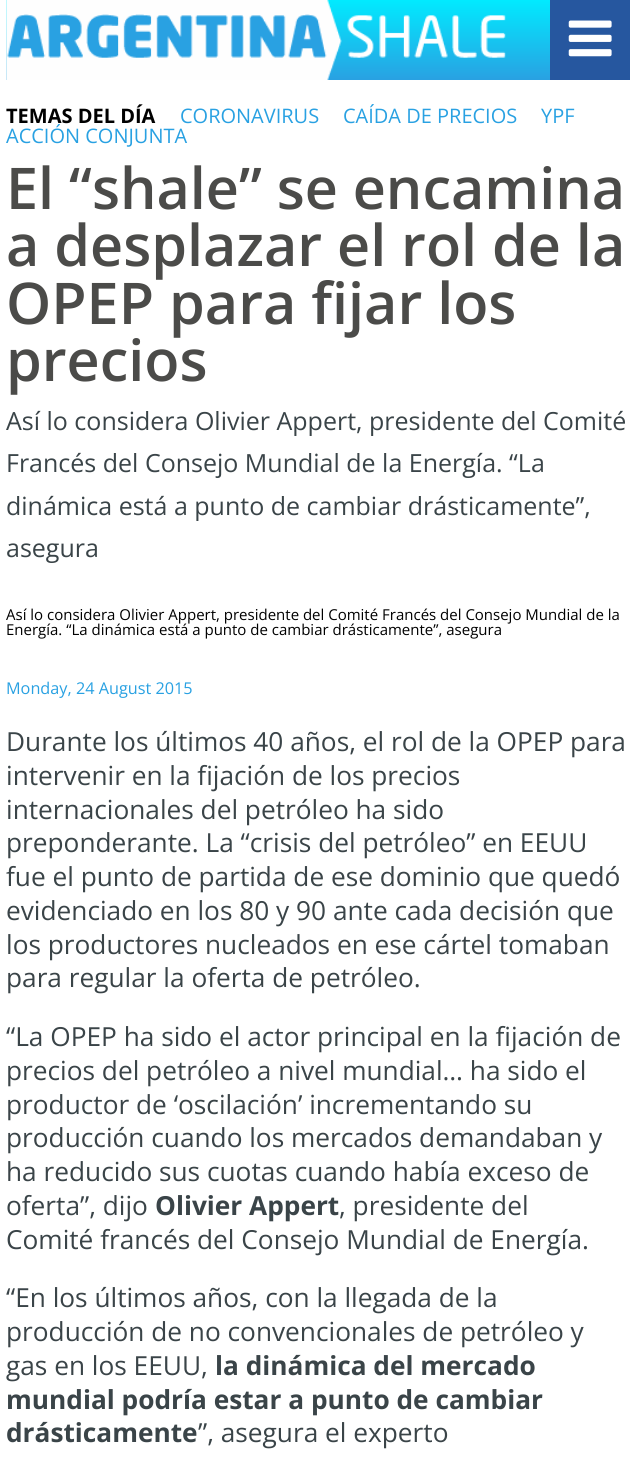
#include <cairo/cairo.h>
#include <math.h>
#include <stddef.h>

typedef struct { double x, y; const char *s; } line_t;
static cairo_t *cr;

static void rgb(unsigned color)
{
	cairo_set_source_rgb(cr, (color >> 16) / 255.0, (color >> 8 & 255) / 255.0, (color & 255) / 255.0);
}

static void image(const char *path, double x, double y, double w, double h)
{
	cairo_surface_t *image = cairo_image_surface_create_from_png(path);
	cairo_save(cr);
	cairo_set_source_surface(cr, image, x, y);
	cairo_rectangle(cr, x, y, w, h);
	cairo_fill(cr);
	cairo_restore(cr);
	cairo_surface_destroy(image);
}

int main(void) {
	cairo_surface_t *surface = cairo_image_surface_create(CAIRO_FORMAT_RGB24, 636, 1469);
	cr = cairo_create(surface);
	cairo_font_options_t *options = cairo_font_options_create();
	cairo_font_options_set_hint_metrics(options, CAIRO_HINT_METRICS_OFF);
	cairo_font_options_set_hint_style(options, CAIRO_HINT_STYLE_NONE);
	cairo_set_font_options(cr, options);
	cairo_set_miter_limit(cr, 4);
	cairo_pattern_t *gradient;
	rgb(0xffffff);
	cairo_paint(cr);
	gradient = cairo_pattern_create_linear(318, 0, 318, 80);
	cairo_pattern_add_color_stop_rgba(gradient, 0, 0.004, 0.918, 1, 1);
	cairo_pattern_add_color_stop_rgba(gradient, 1, 0.161, 0.631, 0.886, 1);
	cairo_set_source(cr, gradient);
	cairo_pattern_destroy(gradient);
	cairo_rectangle(cr, 6, 0, 544, 80);
	cairo_fill(cr);
	image("img/1.png", 6, 0, 500, 80);
	rgb(0x26579f);
	cairo_rectangle(cr, 550, 0, 80, 80);
	cairo_fill(cr);
	image("img/2.png", 568, 20, 44, 37);
	cairo_select_font_face(cr, "Open Sans", CAIRO_FONT_SLANT_NORMAL, CAIRO_FONT_WEIGHT_BOLD);
	cairo_set_font_size(cr, 20);
	rgb(0x000000);
	cairo_move_to(cr, 6, 123);
	cairo_show_text(cr, "TEMAS DEL DÍA");
	cairo_select_font_face(cr, "Open Sans", CAIRO_FONT_SLANT_NORMAL, CAIRO_FONT_WEIGHT_NORMAL);
	rgb(0x29a1e2);
	{
		static const line_t items[] = {
			{180, 123, "CORONAVIRUS"},
			{343, 123, "CAÍDA DE PRECIOS"},
			{541, 123, "YPF"},
			{6, 143, "ACCIÓN CONJUNTA"},
		};
		for (size_t i = 0; i < sizeof items / sizeof *items; i++) {
			cairo_move_to(cr, items[i].x, items[i].y);
			cairo_show_text(cr, items[i].s);
		}
	}
	cairo_select_font_face(cr, "Open Sans SemiBold", CAIRO_FONT_SLANT_NORMAL, CAIRO_FONT_WEIGHT_NORMAL);
	cairo_set_font_size(cr, 57.5);
	rgb(0x4b4b49);
	{
		static const line_t items[] = {
			{6, 209, "El “shale” se encamina"},
			{6, 266, "a desplazar el rol de la"},
			{6, 324, "OPEP para fijar los"},
			{6, 381, "precios"},
		};
		for (size_t i = 0; i < sizeof items / sizeof *items; i++) {
			cairo_move_to(cr, items[i].x, items[i].y);
			cairo_show_text(cr, items[i].s);
		}
	}
	cairo_select_font_face(cr, "Open Sans", CAIRO_FONT_SLANT_NORMAL, CAIRO_FONT_WEIGHT_NORMAL);
	cairo_set_font_size(cr, 25);
	rgb(0x3a4448);
	{
		static const line_t items[] = {
			{6, 430, "Así lo considera Olivier Appert, presidente del Comité"},
			{6, 472, "Francés del Consejo Mundial de la Energía. “La"},
			{6, 515, "dinámica está a punto de cambiar drásticamente”,"},
			{6, 557, "asegura"},
		};
		for (size_t i = 0; i < sizeof items / sizeof *items; i++) {
			cairo_move_to(cr, items[i].x, items[i].y);
			cairo_show_text(cr, items[i].s);
		}
	}
	cairo_set_font_size(cr, 15);
	rgb(0x000000);
	cairo_move_to(cr, 6, 620);
	cairo_show_text(cr, "Así lo considera Olivier Appert, presidente del Comité Francés del Consejo Mundial de la");
	cairo_move_to(cr, 6, 635);
	cairo_show_text(cr, "Energía. “La dinámica está a punto de cambiar drásticamente”, asegura");
	cairo_set_font_size(cr, 16.25);
	rgb(0x29a1e2);
	cairo_move_to(cr, 6, 694);
	cairo_show_text(cr, "Monday, 24 August 2015");
	cairo_set_font_size(cr, 26.25);
	rgb(0x3a4448);
	{
		static const line_t items[] = {
			{6, 751, "Durante los últimos 40 años, el rol de la OPEP para"},
			{6, 785, "intervenir en la fijación de los precios"},
			{6, 819, "internacionales del petróleo ha sido"},
			{6, 852, "preponderante. La “crisis del petróleo” en EEUU"},
			{6, 886, "fue el punto de partida de ese dominio que quedó"},
			{6, 920, "evidenciado en los 80 y 90 ante cada decisión que"},
			{6, 954, "los productores nucleados en ese cártel tomaban"},
			{6, 987, "para regular la oferta de petróleo."},
			{6, 1046, "“La OPEP ha sido el actor principal en la fijación de"},
			{6, 1080, "precios del petróleo a nivel mundial… ha sido el"},
			{6, 1114, "productor de ‘oscilación’ incrementando su"},
			{6, 1147, "producción cuando los mercados demandaban y"},
			{6, 1181, "ha reducido sus cuotas cuando había exceso de"},
			{6, 1215, "oferta”, dijo"},
		};
		for (size_t i = 0; i < sizeof items / sizeof *items; i++) {
			cairo_move_to(cr, items[i].x, items[i].y);
			cairo_show_text(cr, items[i].s);
		}
	}
	cairo_select_font_face(cr, "Open Sans", CAIRO_FONT_SLANT_NORMAL, CAIRO_FONT_WEIGHT_BOLD);
	cairo_move_to(cr, 155, 1215);
	cairo_show_text(cr, "Olivier Appert");
	cairo_select_font_face(cr, "Open Sans", CAIRO_FONT_SLANT_NORMAL, CAIRO_FONT_WEIGHT_NORMAL);
	{
		static const line_t items[] = {
			{339, 1215, ", presidente del"},
			{6, 1249, "Comité francés del Consejo Mundial de Energía."},
			{6, 1307, "“En los últimos años, con la llegada de la"},
			{6, 1341, "producción de no convencionales de petróleo y"},
			{6, 1375, "gas en los EEUU,"},
		};
		for (size_t i = 0; i < sizeof items / sizeof *items; i++) {
			cairo_move_to(cr, items[i].x, items[i].y);
			cairo_show_text(cr, items[i].s);
		}
	}
	cairo_select_font_face(cr, "Open Sans", CAIRO_FONT_SLANT_NORMAL, CAIRO_FONT_WEIGHT_BOLD);
	{
		static const line_t items[] = {
			{215, 1375, "la dinámica del mercado"},
			{6, 1409, "mundial podría estar a punto de cambiar"},
			{6, 1442, "drásticamente"},
		};
		for (size_t i = 0; i < sizeof items / sizeof *items; i++) {
			cairo_move_to(cr, items[i].x, items[i].y);
			cairo_show_text(cr, items[i].s);
		}
	}
	cairo_select_font_face(cr, "Open Sans", CAIRO_FONT_SLANT_NORMAL, CAIRO_FONT_WEIGHT_NORMAL);
	cairo_move_to(cr, 198, 1442);
	cairo_show_text(cr, "”, asegura el experto");
	cairo_surface_write_to_png(surface, "page.png");
	cairo_font_options_destroy(options);
	cairo_destroy(cr);
	cairo_surface_destroy(surface);
	return 0;
}
